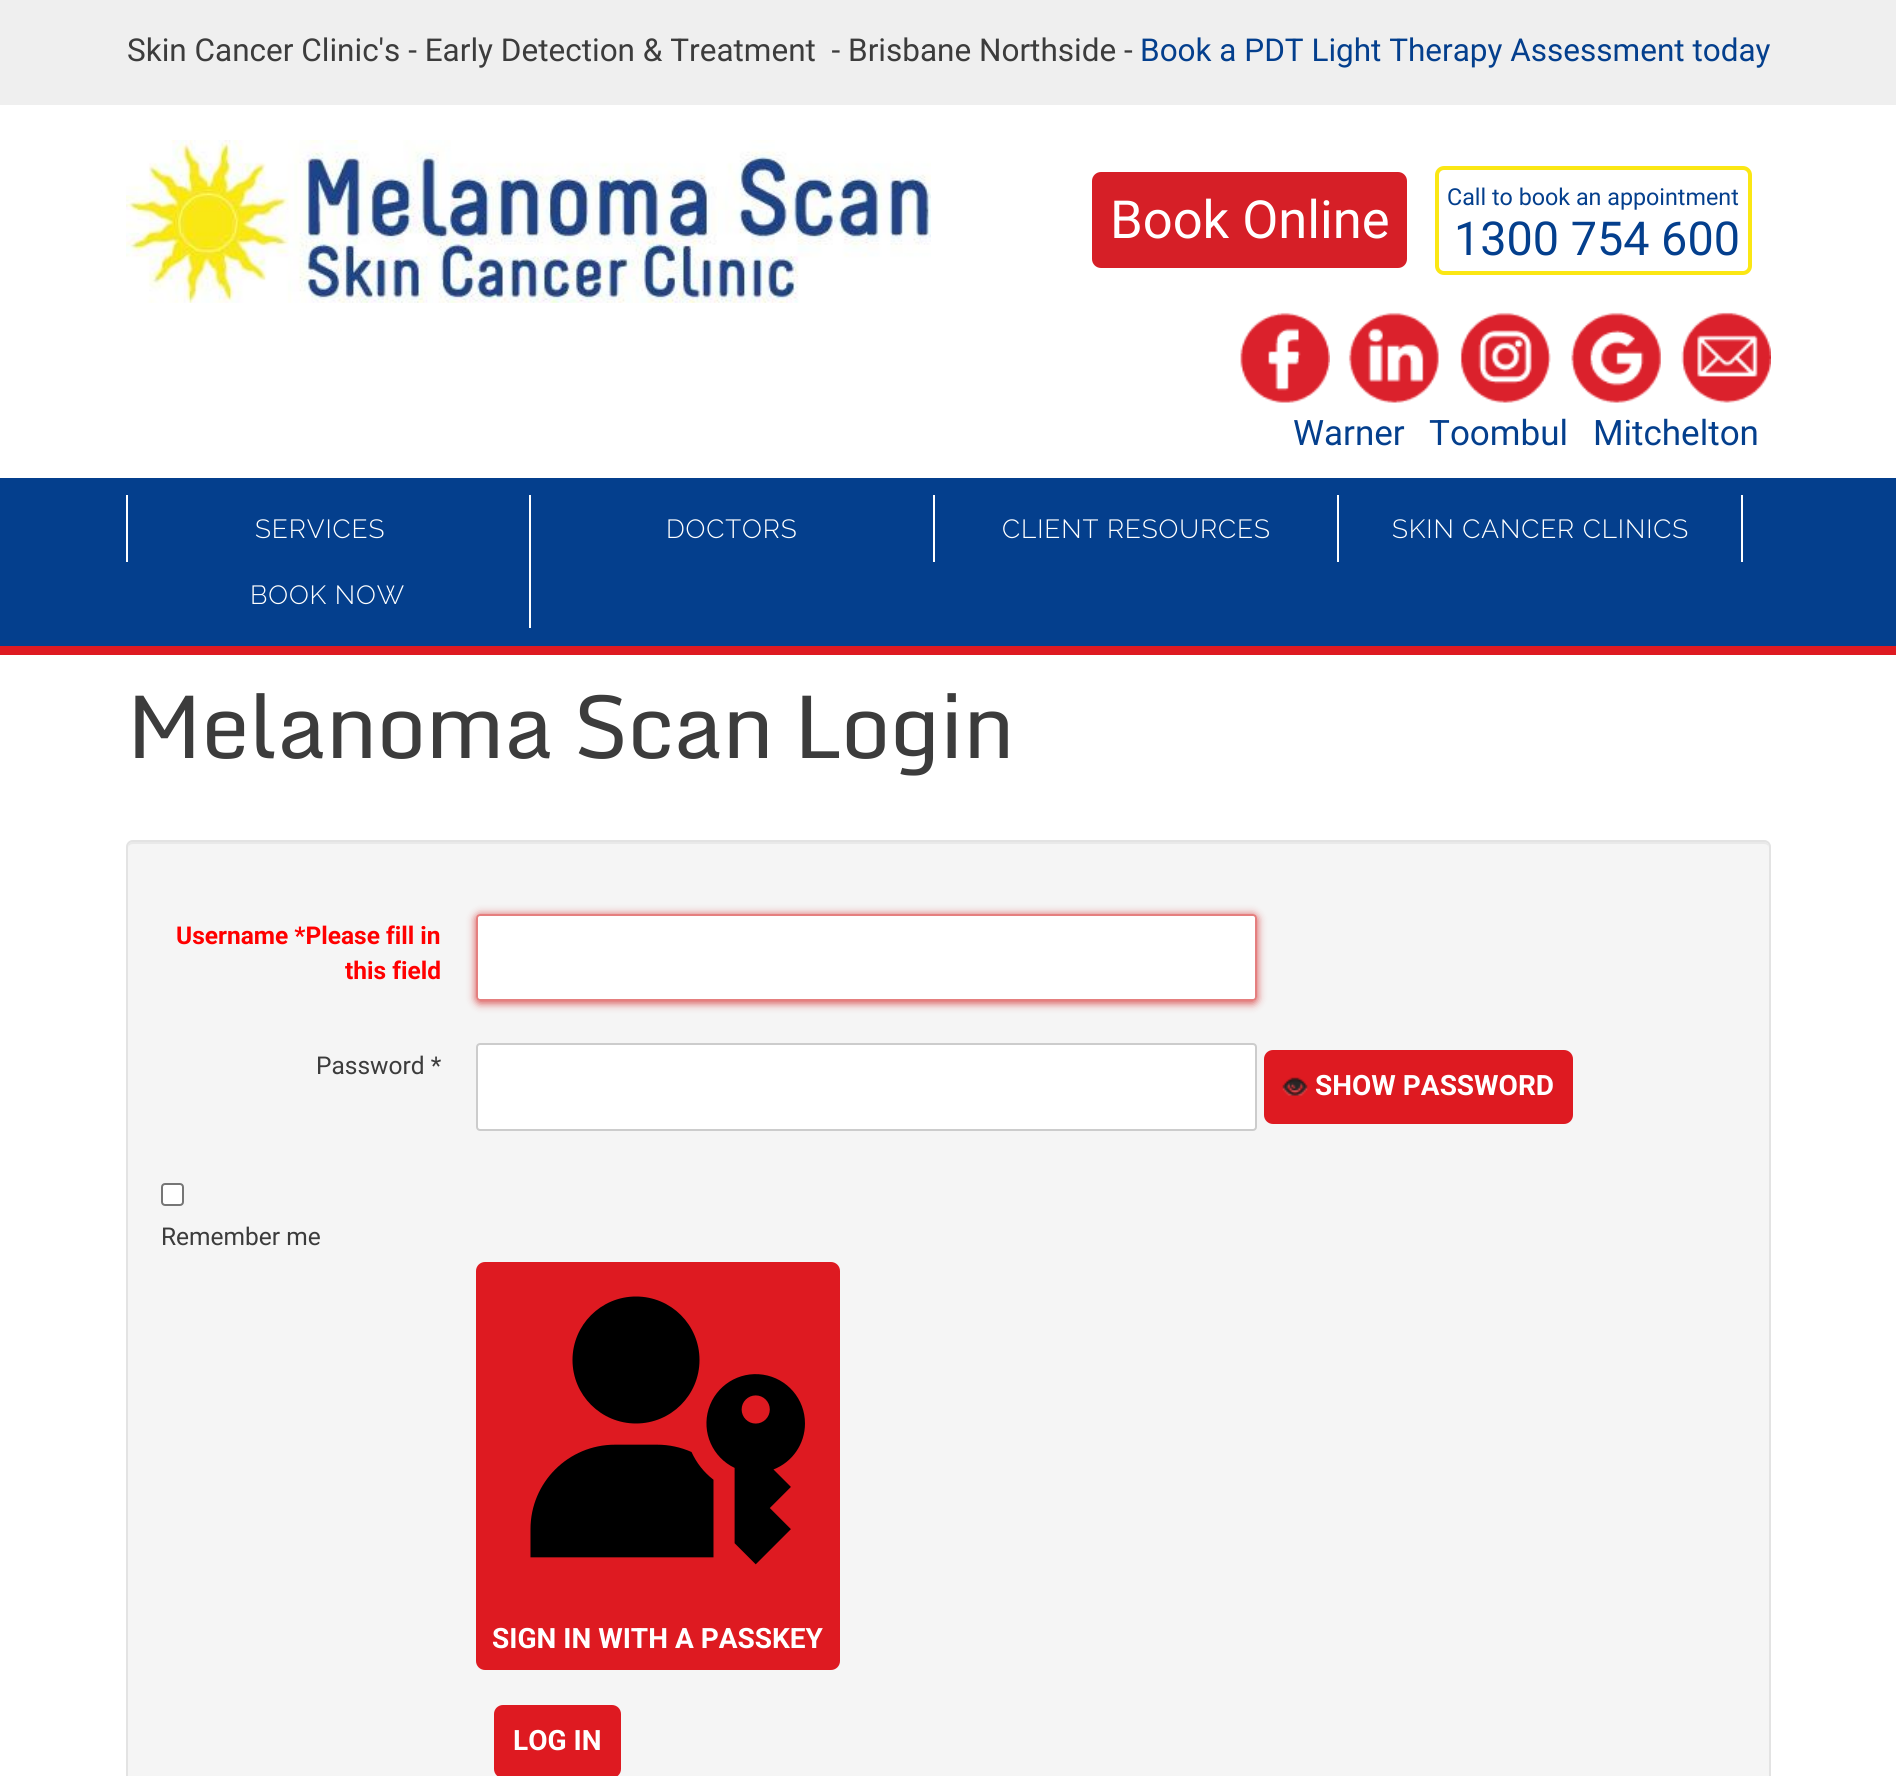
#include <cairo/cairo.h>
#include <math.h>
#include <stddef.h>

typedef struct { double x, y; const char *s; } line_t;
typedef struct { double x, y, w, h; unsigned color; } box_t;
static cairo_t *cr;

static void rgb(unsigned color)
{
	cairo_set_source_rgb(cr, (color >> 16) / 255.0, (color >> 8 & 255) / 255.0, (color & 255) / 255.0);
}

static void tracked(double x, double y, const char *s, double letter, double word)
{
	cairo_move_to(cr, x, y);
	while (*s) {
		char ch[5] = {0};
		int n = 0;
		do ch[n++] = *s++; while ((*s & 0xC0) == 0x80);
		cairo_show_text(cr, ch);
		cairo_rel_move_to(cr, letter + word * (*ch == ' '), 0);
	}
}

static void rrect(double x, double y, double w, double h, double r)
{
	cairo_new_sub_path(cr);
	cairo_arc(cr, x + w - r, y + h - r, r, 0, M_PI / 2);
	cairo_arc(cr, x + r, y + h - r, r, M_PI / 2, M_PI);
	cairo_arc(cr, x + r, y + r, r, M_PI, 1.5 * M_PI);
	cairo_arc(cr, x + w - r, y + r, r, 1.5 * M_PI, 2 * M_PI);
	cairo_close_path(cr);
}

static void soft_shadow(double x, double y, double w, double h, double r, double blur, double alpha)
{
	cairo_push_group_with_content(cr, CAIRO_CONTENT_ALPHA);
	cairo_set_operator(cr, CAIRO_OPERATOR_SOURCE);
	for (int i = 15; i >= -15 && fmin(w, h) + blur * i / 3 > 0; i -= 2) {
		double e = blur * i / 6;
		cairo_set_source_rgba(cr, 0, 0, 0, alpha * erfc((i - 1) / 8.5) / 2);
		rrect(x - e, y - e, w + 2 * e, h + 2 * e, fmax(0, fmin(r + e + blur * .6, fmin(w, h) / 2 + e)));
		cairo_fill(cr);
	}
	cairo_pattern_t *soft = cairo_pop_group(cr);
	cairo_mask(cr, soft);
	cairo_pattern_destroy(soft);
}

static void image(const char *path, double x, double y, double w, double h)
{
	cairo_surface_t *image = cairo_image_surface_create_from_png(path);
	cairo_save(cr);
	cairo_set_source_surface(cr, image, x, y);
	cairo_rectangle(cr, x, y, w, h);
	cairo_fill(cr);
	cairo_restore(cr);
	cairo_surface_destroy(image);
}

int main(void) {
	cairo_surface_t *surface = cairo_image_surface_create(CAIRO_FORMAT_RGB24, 1896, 1776);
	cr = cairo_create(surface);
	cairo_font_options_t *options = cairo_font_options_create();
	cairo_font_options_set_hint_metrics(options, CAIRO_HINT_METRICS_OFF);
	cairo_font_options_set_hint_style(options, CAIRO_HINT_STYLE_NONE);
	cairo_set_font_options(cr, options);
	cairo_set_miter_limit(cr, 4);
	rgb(0xffffff);
	cairo_paint(cr);
	rgb(0xefefef);
	cairo_rectangle(cr, 0, 0, 1896, 105);
	cairo_fill(cr);
	image("img/1.png", 126, 140, 805, 163);
	rgb(0xd61f27);
	rrect(1092, 172, 315, 96, 9);
	cairo_fill(cr);
	rrect(1437, 168, 313, 105, 7);
	rgb(0xfbe714);
	cairo_set_line_width(cr, 4);
	cairo_stroke(cr);
	image("img/2.png", 1240, 312, 90, 91);
	image("img/3.png", 1348, 312, 91, 91);
	image("img/4.png", 1460, 312, 91, 91);
	image("img/5.png", 1571, 312, 90, 91);
	image("img/6.png", 1681, 312, 90, 91);
	{
		static const box_t items[] = {
			{0, 478, 1896, 168, 0x043f8d},
			{0, 646, 1896, 9, 0xde1a21},
			{529, 495, 2, 133, 0xffffff},
			{126, 495, 2, 67, 0xffffff},
			{933, 495, 2, 67, 0xffffff},
			{1337, 495, 2, 67, 0xffffff},
			{1741, 495, 2, 67, 0xffffff},
		};
		for (size_t i = 0; i < sizeof items / sizeof *items; i++) {
			rgb(items[i].color);
			cairo_rectangle(cr, items[i].x, items[i].y, items[i].w, items[i].h);
			cairo_fill(cr);
		}
	}
	rgb(0xf5f5f5);
	rrect(126, 840, 1645, 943, 7);
	cairo_fill(cr);
	rgb(0xe9e9e9);
	cairo_new_path(cr);
	cairo_move_to(cr, 133, 844);
	cairo_line_to(cr, 1764, 844);
	cairo_curve_to(cr, 1767, 844, 1769, 846, 1769, 849);
	cairo_curve_to(cr, 1769, 846, 1768, 842, 1764, 842);
	cairo_line_to(cr, 133, 842);
	cairo_curve_to(cr, 129, 842, 128, 846, 128, 849);
	cairo_curve_to(cr, 128, 846, 130, 844, 133, 844);
	cairo_close_path(cr);
	cairo_fill(cr);
	rrect(127, 841, 1643, 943, 6);
	rgb(0xe3e3e3);
	cairo_set_line_width(cr, 2);
	cairo_stroke(cr);
	rgb(0xcc0000);
	soft_shadow(476, 915, 781, 88, 4, 4.5, 0.7);
	rgb(0xffffff);
	rrect(476, 914, 781, 87, 4);
	cairo_fill(cr);
	rrect(477, 915, 779, 85, 3);
	cairo_set_source_rgba(cr, 0.8, 0, 0, 0.5);
	cairo_stroke(cr);
	rgb(0xffffff);
	rrect(477, 1044, 779, 86, 3);
	cairo_fill_preserve(cr);
	rgb(0xcccccc);
	cairo_stroke(cr);
	rgb(0xde1a21);
	rrect(1265, 1051, 307, 72, 8);
	cairo_fill_preserve(cr);
	cairo_stroke(cr);
	image("img/7.png", 1282, 1077, 26, 19);
	rgb(0xffffff);
	rrect(162, 1184, 21, 21, 3);
	cairo_fill_preserve(cr);
	rgb(0x767676);
	cairo_stroke(cr);
	rgb(0xde1a21);
	rrect(477, 1263, 362, 406, 8);
	cairo_fill_preserve(cr);
	cairo_stroke(cr);
	image("img/8.png", 530, 1296, 275, 269);
	rrect(495, 1706, 125, 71, 8);
	cairo_fill_preserve(cr);
	cairo_stroke(cr);
	cairo_select_font_face(cr, "Roboto", CAIRO_FONT_SLANT_NORMAL, CAIRO_FONT_WEIGHT_NORMAL);
	cairo_set_font_size(cr, 31.5);
	rgb(0x3c3c3c);
	cairo_move_to(cr, 127, 61);
	cairo_show_text(cr, "Skin Cancer Clinic's - Early Detection & Treatment  - Brisbane Northside -");
	rgb(0x043f8d);
	cairo_move_to(cr, 1140, 61);
	cairo_show_text(cr, "Book a PDT Light Therapy Assessment today");
	cairo_set_font_size(cr, 52.5);
	rgb(0xffffff);
	cairo_move_to(cr, 1110, 238);
	cairo_show_text(cr, "Book Online");
	cairo_set_font_size(cr, 23.3);
	rgb(0x043f8d);
	cairo_move_to(cr, 1447, 205);
	cairo_show_text(cr, "Call to book an appointment");
	cairo_set_font_size(cr, 46.75);
	cairo_move_to(cr, 1454, 255);
	cairo_show_text(cr, "1300 754 600");
	cairo_set_font_size(cr, 35);
	{
		static const line_t items[] = {
			{1293, 445, "Warner"},
			{1429, 445, "Toombul"},
			{1593, 445, "Mitchelton"},
		};
		for (size_t i = 0; i < sizeof items / sizeof *items; i++) {
			cairo_move_to(cr, items[i].x, items[i].y);
			cairo_show_text(cr, items[i].s);
		}
	}
	cairo_select_font_face(cr, "Raleway Light", CAIRO_FONT_SLANT_NORMAL, CAIRO_FONT_WEIGHT_NORMAL);
	cairo_set_font_size(cr, 26.25);
	rgb(0xffffff);
	{
		static const line_t items[] = {
			{255, 538, "SERVICES"},
			{666, 538, "DOCTORS"},
			{1002, 538, "CLIENT RESOURCES"},
			{1392, 538, "SKIN CANCER CLINICS"},
			{250, 604, "BOOK NOW"},
		};
		for (size_t i = 0; i < sizeof items / sizeof *items; i++) {
			tracked(items[i].x, items[i].y, items[i].s, 0.9, 0);
		}
	}
	cairo_select_font_face(cr, "Monda", CAIRO_FONT_SLANT_NORMAL, CAIRO_FONT_WEIGHT_NORMAL);
	cairo_set_font_size(cr, 88.25);
	rgb(0x3c3c3c);
	tracked(126, 758, "Melanoma Scan Login", -1.75, 0);
	cairo_select_font_face(cr, "Roboto", CAIRO_FONT_SLANT_NORMAL, CAIRO_FONT_WEIGHT_BOLD);
	cairo_set_font_size(cr, 24.5);
	rgb(0xff0000);
	cairo_move_to(cr, 176, 944);
	cairo_show_text(cr, "Username *Please fill in");
	cairo_move_to(cr, 345, 979);
	cairo_show_text(cr, "this field");
	cairo_select_font_face(cr, "Roboto", CAIRO_FONT_SLANT_NORMAL, CAIRO_FONT_WEIGHT_NORMAL);
	rgb(0x3c3c3c);
	cairo_move_to(cr, 316, 1074);
	cairo_show_text(cr, "Password *");
	cairo_select_font_face(cr, "Roboto", CAIRO_FONT_SLANT_NORMAL, CAIRO_FONT_WEIGHT_BOLD);
	cairo_set_font_size(cr, 28);
	rgb(0xffffff);
	cairo_move_to(cr, 1315, 1095);
	cairo_show_text(cr, "SHOW PASSWORD");
	cairo_select_font_face(cr, "Roboto", CAIRO_FONT_SLANT_NORMAL, CAIRO_FONT_WEIGHT_NORMAL);
	cairo_set_font_size(cr, 24.5);
	rgb(0x3c3c3c);
	cairo_move_to(cr, 161, 1245);
	cairo_show_text(cr, "Remember me");
	cairo_select_font_face(cr, "Roboto", CAIRO_FONT_SLANT_NORMAL, CAIRO_FONT_WEIGHT_BOLD);
	cairo_set_font_size(cr, 28);
	rgb(0xffffff);
	cairo_move_to(cr, 492, 1648);
	cairo_show_text(cr, "SIGN IN WITH A PASSKEY");
	cairo_move_to(cr, 513, 1750);
	cairo_show_text(cr, "LOG IN");
	cairo_surface_write_to_png(surface, "page.png");
	cairo_font_options_destroy(options);
	cairo_destroy(cr);
	cairo_surface_destroy(surface);
	return 0;
}
